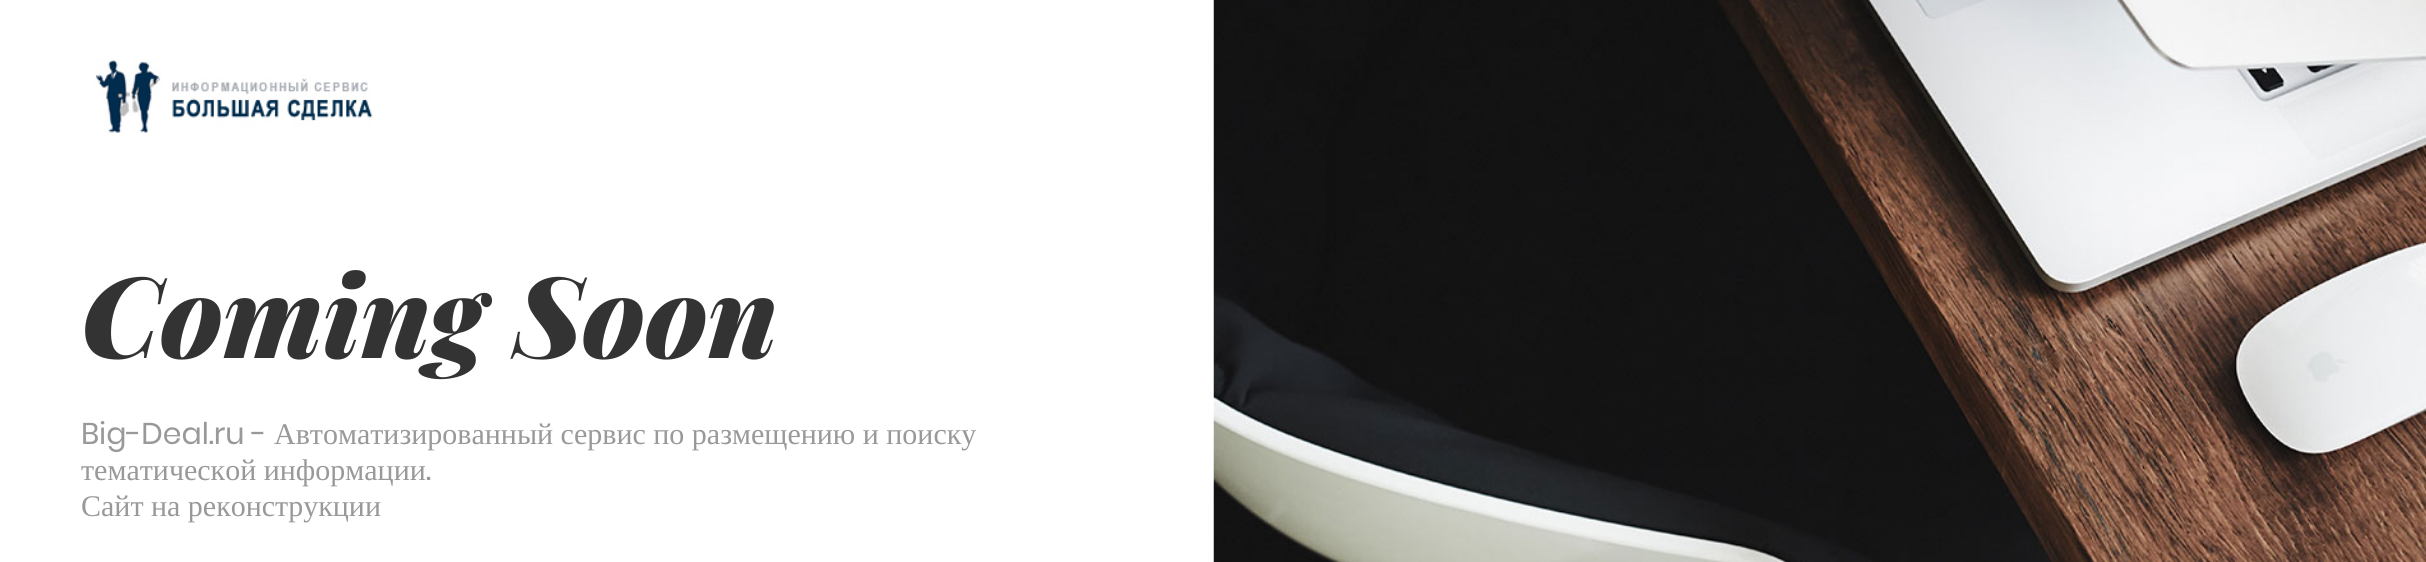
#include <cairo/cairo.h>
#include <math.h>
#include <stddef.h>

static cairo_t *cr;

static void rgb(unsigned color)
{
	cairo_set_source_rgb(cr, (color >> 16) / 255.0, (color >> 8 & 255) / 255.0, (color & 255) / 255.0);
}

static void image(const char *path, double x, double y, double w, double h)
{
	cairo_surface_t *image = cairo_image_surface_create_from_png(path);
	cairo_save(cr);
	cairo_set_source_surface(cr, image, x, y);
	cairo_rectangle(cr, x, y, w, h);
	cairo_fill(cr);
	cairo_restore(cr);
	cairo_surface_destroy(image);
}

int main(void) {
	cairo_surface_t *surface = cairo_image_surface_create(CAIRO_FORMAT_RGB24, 2426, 562);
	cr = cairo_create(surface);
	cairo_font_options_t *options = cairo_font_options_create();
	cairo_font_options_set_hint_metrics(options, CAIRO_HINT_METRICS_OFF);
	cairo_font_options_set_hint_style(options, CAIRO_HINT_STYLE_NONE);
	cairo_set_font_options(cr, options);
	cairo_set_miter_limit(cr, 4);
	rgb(0xffffff);
	cairo_paint(cr);
	image("img/1.png", 95, 59, 278, 74);
	image("img/2.png", 1213, 0, 1213, 562);
	cairo_select_font_face(cr, "Playfair Display Black", CAIRO_FONT_SLANT_ITALIC, CAIRO_FONT_WEIGHT_NORMAL);
	cairo_set_font_size(cr, 112.5);
	rgb(0x333333);
	cairo_move_to(cr, 81, 358);
	cairo_show_text(cr, "Coming Soon");
	cairo_select_font_face(cr, "Poppins", CAIRO_FONT_SLANT_NORMAL, CAIRO_FONT_WEIGHT_NORMAL);
	cairo_set_font_size(cr, 30);
	rgb(0x999999);
	cairo_move_to(cr, 81, 444);
	cairo_show_text(cr, "Big-Deal.ru -");
	cairo_select_font_face(cr, "Liberation Serif", CAIRO_FONT_SLANT_NORMAL, CAIRO_FONT_WEIGHT_NORMAL);
	cairo_move_to(cr, 274, 444);
	cairo_show_text(cr, "Автоматизированный сервис по размещению и поиску");
	cairo_move_to(cr, 81, 480);
	cairo_show_text(cr, "тематической информации");
	cairo_select_font_face(cr, "Poppins", CAIRO_FONT_SLANT_NORMAL, CAIRO_FONT_WEIGHT_NORMAL);
	cairo_move_to(cr, 426, 480);
	cairo_show_text(cr, ".");
	cairo_select_font_face(cr, "Liberation Serif", CAIRO_FONT_SLANT_NORMAL, CAIRO_FONT_WEIGHT_NORMAL);
	cairo_move_to(cr, 81, 516);
	cairo_show_text(cr, "Сайт на реконструкции");
	cairo_surface_write_to_png(surface, "page.png");
	cairo_font_options_destroy(options);
	cairo_destroy(cr);
	cairo_surface_destroy(surface);
	return 0;
}
